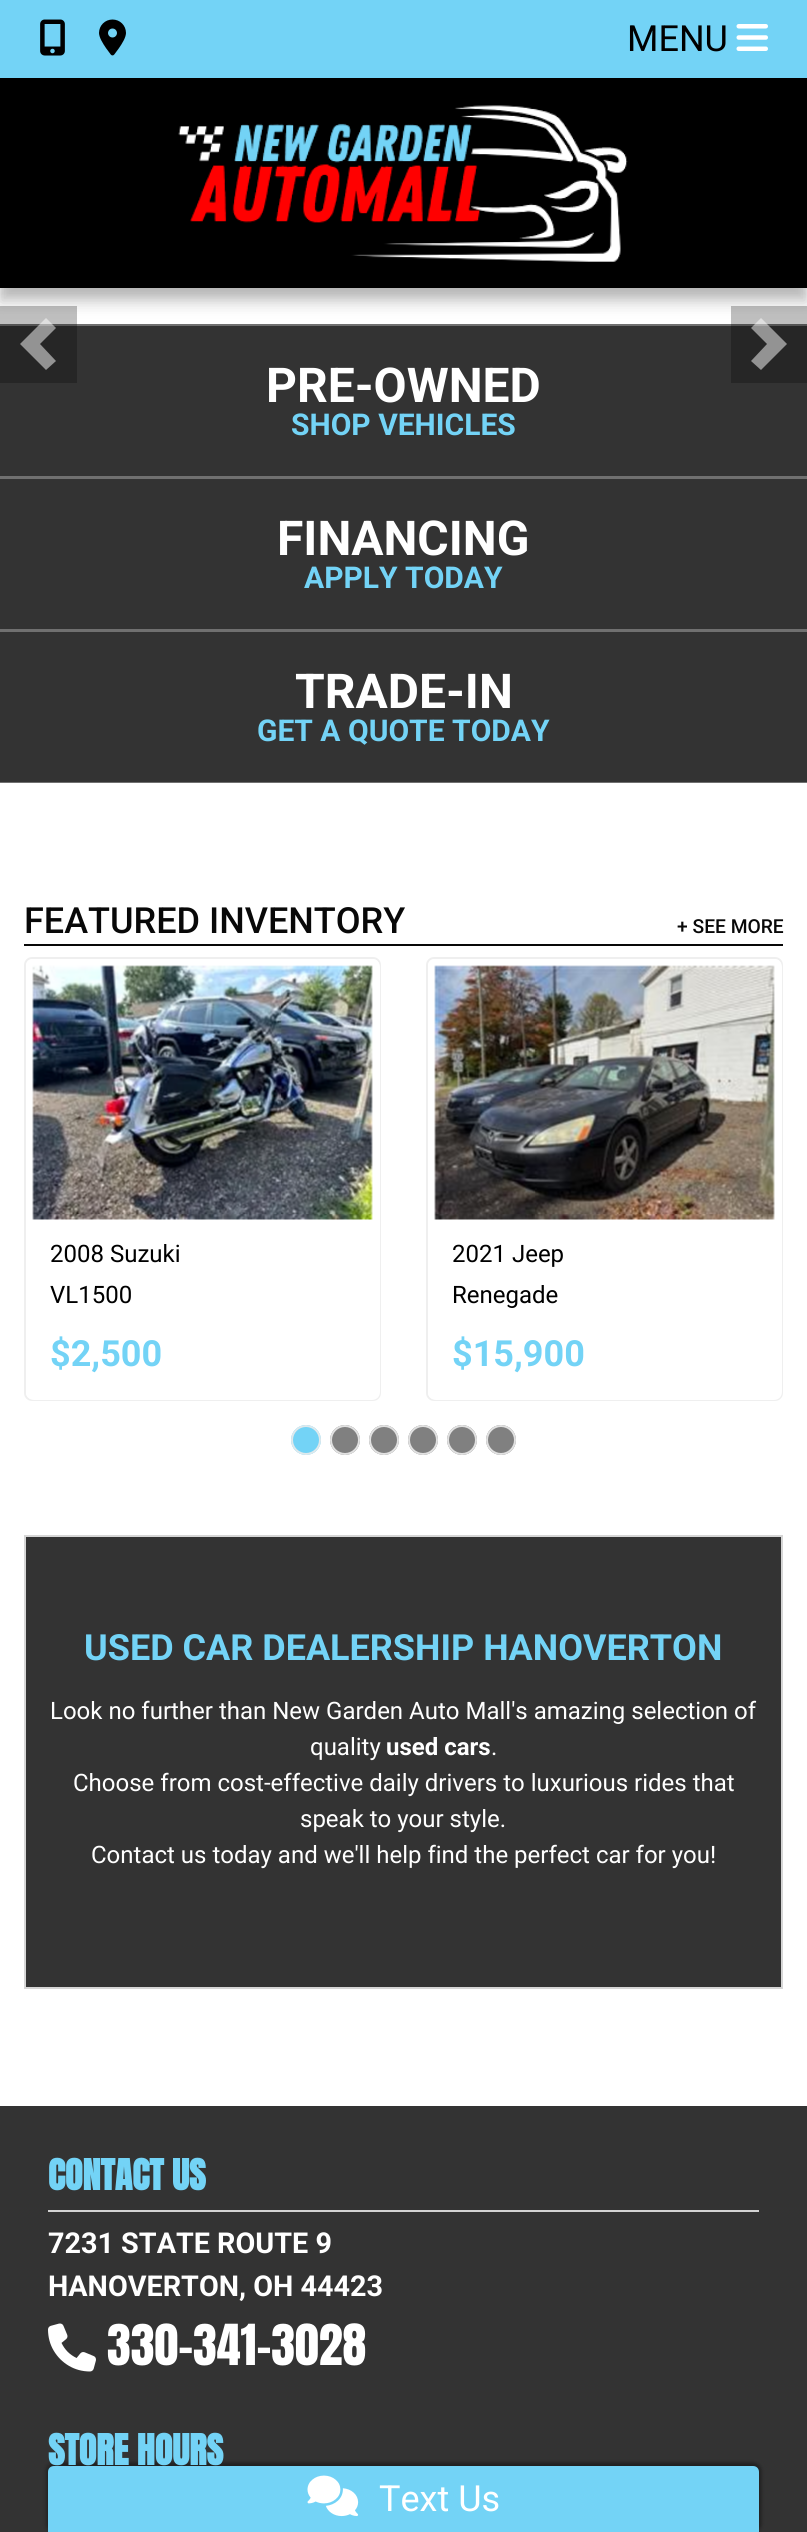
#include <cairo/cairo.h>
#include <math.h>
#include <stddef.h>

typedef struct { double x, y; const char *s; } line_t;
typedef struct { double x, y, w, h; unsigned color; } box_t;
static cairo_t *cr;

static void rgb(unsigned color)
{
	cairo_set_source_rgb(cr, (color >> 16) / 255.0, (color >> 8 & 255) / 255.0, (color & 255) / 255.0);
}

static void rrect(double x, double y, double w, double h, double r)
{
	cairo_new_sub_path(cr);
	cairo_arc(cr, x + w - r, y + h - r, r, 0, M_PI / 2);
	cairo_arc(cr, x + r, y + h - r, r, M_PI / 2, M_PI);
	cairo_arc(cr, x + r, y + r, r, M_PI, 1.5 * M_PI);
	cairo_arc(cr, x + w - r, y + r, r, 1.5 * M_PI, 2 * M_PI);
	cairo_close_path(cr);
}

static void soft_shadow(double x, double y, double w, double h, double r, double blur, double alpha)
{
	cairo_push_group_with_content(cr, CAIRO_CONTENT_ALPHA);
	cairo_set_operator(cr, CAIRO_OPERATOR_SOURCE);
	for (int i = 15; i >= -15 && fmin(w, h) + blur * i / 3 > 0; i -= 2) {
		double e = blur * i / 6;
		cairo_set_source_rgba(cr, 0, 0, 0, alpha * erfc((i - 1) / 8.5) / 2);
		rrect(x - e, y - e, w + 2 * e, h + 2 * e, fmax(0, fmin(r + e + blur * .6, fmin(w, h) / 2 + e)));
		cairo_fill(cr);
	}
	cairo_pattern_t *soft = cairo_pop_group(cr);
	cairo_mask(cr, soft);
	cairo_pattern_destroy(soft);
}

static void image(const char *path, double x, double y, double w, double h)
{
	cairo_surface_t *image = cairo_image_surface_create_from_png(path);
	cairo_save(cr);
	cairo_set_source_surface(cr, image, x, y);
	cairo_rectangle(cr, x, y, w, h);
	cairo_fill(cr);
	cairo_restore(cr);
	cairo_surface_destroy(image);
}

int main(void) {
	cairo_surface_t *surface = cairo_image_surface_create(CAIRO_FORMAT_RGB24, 807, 2532);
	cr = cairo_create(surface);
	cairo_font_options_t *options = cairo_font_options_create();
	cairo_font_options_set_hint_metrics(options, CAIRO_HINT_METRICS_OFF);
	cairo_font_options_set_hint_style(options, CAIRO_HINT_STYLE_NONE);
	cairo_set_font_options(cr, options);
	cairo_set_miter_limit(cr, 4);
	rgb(0xffffff);
	cairo_paint(cr);
	rgb(0xbfbfbf);
	cairo_rectangle(cr, 731, 306, 76, 18);
	cairo_fill(cr);
	cairo_rectangle(cr, 0, 306, 77, 18);
	cairo_fill(cr);
	rgb(0x000000);
	soft_shadow(0, 8, 807, 288, 0, 4, 0.1);
	{
		static const box_t items[] = {
			{0, 326, 807, 150, 0x333333},
			{0, 326, 77, 57, 0x262626},
			{0, 324, 77, 2, 0x545454},
		};
		for (size_t i = 0; i < sizeof items / sizeof *items; i++) {
			rgb(items[i].color);
			cairo_rectangle(cr, items[i].x, items[i].y, items[i].w, items[i].h);
			cairo_fill(cr);
		}
	}
	cairo_set_source_rgba(cr, 1, 1, 1, 0.5);
	cairo_new_path(cr);
	cairo_move_to(cr, 46, 318);
	cairo_line_to(cr, 20, 344);
	cairo_line_to(cr, 46, 370);
	cairo_line_to(cr, 56, 361);
	cairo_line_to(cr, 40, 344);
	cairo_line_to(cr, 56, 328);
	cairo_close_path(cr);
	cairo_fill(cr);
	rgb(0x262626);
	cairo_rectangle(cr, 731, 326, 76, 57);
	cairo_fill(cr);
	rgb(0x545454);
	cairo_rectangle(cr, 731, 324, 76, 2);
	cairo_fill(cr);
	cairo_set_source_rgba(cr, 1, 1, 1, 0.5);
	cairo_new_path(cr);
	cairo_move_to(cr, 761, 318);
	cairo_line_to(cr, 751, 328);
	cairo_line_to(cr, 767, 344);
	cairo_line_to(cr, 751, 361);
	cairo_line_to(cr, 761, 370);
	cairo_line_to(cr, 787, 344);
	cairo_close_path(cr);
	cairo_fill(cr);
	rgb(0x707070);
	cairo_rectangle(cr, 77, 324, 654, 2);
	cairo_fill(cr);
	rgb(0x000000);
	soft_shadow(0, 15, 807, 288, 0, 7.5, 0.2);
	rgb(0x000000);
	cairo_rectangle(cr, 0, 78, 807, 210);
	cairo_fill(cr);
	rgb(0x73d3f6);
	cairo_rectangle(cr, 0, 0, 807, 78);
	cairo_fill(cr);
	image("img/1.png", 40, 19, 25, 37);
	image("img/2.png", 99, 19, 27, 37);
	image("img/3.png", 736, 24, 32, 27);
	image("img/4.png", 178, 105, 450, 157);
	{
		static const box_t items[] = {
			{0, 476, 807, 3, 0x707070},
			{0, 479, 807, 150, 0x333333},
			{0, 629, 807, 3, 0x707070},
			{0, 632, 807, 150, 0x333333},
			{0, 782, 807, 1, 0x707070},
			{24, 944, 759, 2, 0x080808},
		};
		for (size_t i = 0; i < sizeof items / sizeof *items; i++) {
			rgb(items[i].color);
			cairo_rectangle(cr, items[i].x, items[i].y, items[i].w, items[i].h);
			cairo_fill(cr);
		}
	}
	rrect(25, 958, 355, 442, 7);
	rgb(0xefefef);
	cairo_stroke(cr);
	rgb(0xffffff);
	cairo_new_path(cr);
	cairo_move_to(cr, 34, 959);
	cairo_line_to(cr, 372, 959);
	cairo_curve_to(cr, 376.5, 959, 380, 962.5, 380, 967);
	cairo_line_to(cr, 380, 1227);
	cairo_line_to(cr, 26, 1227);
	cairo_line_to(cr, 26, 967);
	cairo_curve_to(cr, 26, 962.5, 29.5, 959, 34, 959);
	cairo_close_path(cr);
	cairo_fill(cr);
	image("img/5.png", 32, 965, 341, 255);
	cairo_rectangle(cr, 379, 1227, 1, 95);
	cairo_fill(cr);
	cairo_new_path(cr);
	cairo_move_to(cr, 26, 1322);
	cairo_line_to(cr, 380, 1322);
	cairo_line_to(cr, 380, 1392);
	cairo_curve_to(cr, 380, 1396.5, 376.5, 1400, 372, 1400);
	cairo_line_to(cr, 34, 1400);
	cairo_curve_to(cr, 29.5, 1400, 26, 1396.5, 26, 1392);
	cairo_close_path(cr);
	cairo_fill(cr);
	rrect(427, 958, 355, 442, 7);
	rgb(0xefefef);
	cairo_stroke(cr);
	rgb(0xffffff);
	cairo_new_path(cr);
	cairo_move_to(cr, 436, 959);
	cairo_line_to(cr, 774, 959);
	cairo_curve_to(cr, 778.5, 959, 782, 962.5, 782, 967);
	cairo_line_to(cr, 782, 1227);
	cairo_line_to(cr, 428, 1227);
	cairo_line_to(cr, 428, 967);
	cairo_curve_to(cr, 428, 962.5, 431.5, 959, 436, 959);
	cairo_close_path(cr);
	cairo_fill(cr);
	image("img/6.png", 434, 965, 341, 255);
	cairo_rectangle(cr, 781, 1227, 1, 95);
	cairo_fill(cr);
	cairo_new_path(cr);
	cairo_move_to(cr, 428, 1322);
	cairo_line_to(cr, 782, 1322);
	cairo_line_to(cr, 782, 1392);
	cairo_curve_to(cr, 782, 1396.5, 778.5, 1400, 774, 1400);
	cairo_line_to(cr, 436, 1400);
	cairo_curve_to(cr, 431.5, 1400, 428, 1396.5, 428, 1392);
	cairo_close_path(cr);
	cairo_fill(cr);
	rgb(0x73d3f6);
	cairo_arc(cr, 306, 1440, 15, 0, 2 * M_PI);
	cairo_fill(cr);
	cairo_arc(cr, 306, 1440, 14, 0, 2 * M_PI);
	cairo_set_source_rgba(cr, 0.922, 0.922, 0.922, 0.9);
	cairo_stroke(cr);
	rgb(0x808080);
	cairo_arc(cr, 345, 1440, 15, 0, 2 * M_PI);
	cairo_fill(cr);
	cairo_arc(cr, 345, 1440, 14, 0, 2 * M_PI);
	cairo_set_source_rgba(cr, 0.922, 0.922, 0.922, 0.9);
	cairo_stroke(cr);
	rgb(0x808080);
	cairo_arc(cr, 384, 1440, 15, 0, 2 * M_PI);
	cairo_fill(cr);
	cairo_arc(cr, 384, 1440, 14, 0, 2 * M_PI);
	cairo_set_source_rgba(cr, 0.922, 0.922, 0.922, 0.9);
	cairo_stroke(cr);
	rgb(0x808080);
	cairo_arc(cr, 423, 1440, 15, 0, 2 * M_PI);
	cairo_fill(cr);
	cairo_arc(cr, 423, 1440, 14, 0, 2 * M_PI);
	cairo_set_source_rgba(cr, 0.922, 0.922, 0.922, 0.9);
	cairo_stroke(cr);
	rgb(0x808080);
	cairo_arc(cr, 462, 1440, 15, 0, 2 * M_PI);
	cairo_fill(cr);
	cairo_arc(cr, 462, 1440, 14, 0, 2 * M_PI);
	cairo_set_source_rgba(cr, 0.922, 0.922, 0.922, 0.9);
	cairo_stroke(cr);
	rgb(0x808080);
	cairo_arc(cr, 501, 1440, 15, 0, 2 * M_PI);
	cairo_fill(cr);
	cairo_arc(cr, 501, 1440, 14, 0, 2 * M_PI);
	cairo_set_source_rgba(cr, 0.922, 0.922, 0.922, 0.9);
	cairo_stroke(cr);
	rgb(0x333333);
	cairo_rectangle(cr, 25, 1536, 757, 452);
	cairo_fill_preserve(cr);
	rgb(0xd6d6d6);
	cairo_stroke(cr);
	rgb(0x333333);
	cairo_rectangle(cr, 0, 2106, 807, 426);
	cairo_fill(cr);
	rgb(0xd3d3d3);
	cairo_rectangle(cr, 48, 2210, 711, 2);
	cairo_fill(cr);
	image("img/7.png", 48, 2323, 48, 49);
	rgb(0x000000);
	soft_shadow(47, 2463, 714, 69, 8, 1.5, 0.25);
	soft_shadow(45, 2462, 717, 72, 9, 2, 0.15);
	rgb(0x73d3f6);
	cairo_new_path(cr);
	cairo_move_to(cr, 54, 2466);
	cairo_line_to(cr, 753, 2466);
	cairo_curve_to(cr, 756.5, 2466, 759, 2468.5, 759, 2472);
	cairo_line_to(cr, 759, 2532);
	cairo_line_to(cr, 48, 2532);
	cairo_line_to(cr, 48, 2472);
	cairo_curve_to(cr, 48, 2468.5, 50.5, 2466, 54, 2466);
	cairo_close_path(cr);
	cairo_fill(cr);
	image("img/8.png", 307, 2475, 52, 42);
	cairo_select_font_face(cr, "Roboto", CAIRO_FONT_SLANT_NORMAL, CAIRO_FONT_WEIGHT_NORMAL);
	cairo_set_font_size(cr, 36);
	rgb(0x000000);
	cairo_move_to(cr, 627, 51);
	cairo_show_text(cr, "MENU");
	cairo_select_font_face(cr, "Roboto", CAIRO_FONT_SLANT_NORMAL, CAIRO_FONT_WEIGHT_BOLD);
	cairo_set_font_size(cr, 48);
	rgb(0xffffff);
	cairo_move_to(cr, 266, 402);
	cairo_show_text(cr, "PRE-OWNED");
	cairo_set_font_size(cr, 30);
	rgb(0x73d3f6);
	cairo_move_to(cr, 291, 435);
	cairo_show_text(cr, "SHOP VEHICLES");
	cairo_set_font_size(cr, 48);
	rgb(0xffffff);
	cairo_move_to(cr, 277, 555);
	cairo_show_text(cr, "FINANCING");
	cairo_set_font_size(cr, 30);
	rgb(0x73d3f6);
	cairo_move_to(cr, 304, 588);
	cairo_show_text(cr, "APPLY TODAY");
	cairo_set_font_size(cr, 48);
	rgb(0xffffff);
	cairo_move_to(cr, 295, 708);
	cairo_show_text(cr, "TRADE-IN");
	cairo_set_font_size(cr, 30);
	rgb(0x73d3f6);
	cairo_move_to(cr, 257, 741);
	cairo_show_text(cr, "GET A QUOTE TODAY");
	cairo_select_font_face(cr, "Roboto Medium", CAIRO_FONT_SLANT_NORMAL, CAIRO_FONT_WEIGHT_NORMAL);
	cairo_set_font_size(cr, 36);
	rgb(0x080808);
	cairo_move_to(cr, 24, 933);
	cairo_show_text(cr, "FEATURED INVENTORY");
	cairo_set_font_size(cr, 19.25);
	cairo_move_to(cr, 677, 933);
	cairo_show_text(cr, "+ SEE MORE");
	cairo_select_font_face(cr, "Roboto", CAIRO_FONT_SLANT_NORMAL, CAIRO_FONT_WEIGHT_NORMAL);
	cairo_set_font_size(cr, 24);
	rgb(0x000000);
	cairo_move_to(cr, 50, 1262);
	cairo_show_text(cr, "2008 Suzuki");
	cairo_move_to(cr, 50, 1303);
	cairo_show_text(cr, "VL1500");
	cairo_select_font_face(cr, "Roboto", CAIRO_FONT_SLANT_NORMAL, CAIRO_FONT_WEIGHT_BOLD);
	cairo_set_font_size(cr, 36);
	rgb(0x73d3f6);
	cairo_move_to(cr, 50, 1366);
	cairo_show_text(cr, "$2,500");
	cairo_select_font_face(cr, "Roboto", CAIRO_FONT_SLANT_NORMAL, CAIRO_FONT_WEIGHT_NORMAL);
	cairo_set_font_size(cr, 24);
	rgb(0x000000);
	cairo_move_to(cr, 452, 1262);
	cairo_show_text(cr, "2021 Jeep");
	cairo_move_to(cr, 452, 1303);
	cairo_show_text(cr, "Renegade");
	cairo_select_font_face(cr, "Roboto", CAIRO_FONT_SLANT_NORMAL, CAIRO_FONT_WEIGHT_BOLD);
	cairo_set_font_size(cr, 36);
	rgb(0x73d3f6);
	cairo_move_to(cr, 452, 1366);
	cairo_show_text(cr, "$15,900");
	cairo_move_to(cr, 84, 1660);
	cairo_show_text(cr, "USED CAR DEALERSHIP HANOVERTON");
	cairo_select_font_face(cr, "Roboto", CAIRO_FONT_SLANT_NORMAL, CAIRO_FONT_WEIGHT_NORMAL);
	cairo_set_font_size(cr, 24);
	rgb(0xffffff);
	cairo_move_to(cr, 50, 1719);
	cairo_show_text(cr, "Look no further than New Garden Auto Mall's amazing selection of");
	cairo_move_to(cr, 310, 1755);
	cairo_show_text(cr, "quality");
	cairo_select_font_face(cr, "Roboto", CAIRO_FONT_SLANT_NORMAL, CAIRO_FONT_WEIGHT_BOLD);
	cairo_move_to(cr, 386, 1755);
	cairo_show_text(cr, "used cars");
	cairo_select_font_face(cr, "Roboto", CAIRO_FONT_SLANT_NORMAL, CAIRO_FONT_WEIGHT_NORMAL);
	{
		static const line_t items[] = {
			{491, 1755, "."},
			{73, 1791, "Choose from cost-effective daily drivers to luxurious rides that"},
			{300, 1827, "speak to your style."},
			{91, 1863, "Contact us today and we'll help find the perfect car for you!"},
		};
		for (size_t i = 0; i < sizeof items / sizeof *items; i++) {
			cairo_move_to(cr, items[i].x, items[i].y);
			cairo_show_text(cr, items[i].s);
		}
	}
	cairo_select_font_face(cr, "Anton", CAIRO_FONT_SLANT_NORMAL, CAIRO_FONT_WEIGHT_BOLD);
	cairo_set_font_size(cr, 36);
	rgb(0x73d3f6);
	cairo_move_to(cr, 48, 2190);
	cairo_show_text(cr, "CONTACT US");
	cairo_select_font_face(cr, "Roboto", CAIRO_FONT_SLANT_NORMAL, CAIRO_FONT_WEIGHT_BOLD);
	cairo_set_font_size(cr, 28.75);
	rgb(0xffffff);
	cairo_move_to(cr, 48, 2253);
	cairo_show_text(cr, "7231 STATE ROUTE 9");
	cairo_move_to(cr, 48, 2296);
	cairo_show_text(cr, "HANOVERTON, OH 44423");
	cairo_select_font_face(cr, "Anton", CAIRO_FONT_SLANT_NORMAL, CAIRO_FONT_WEIGHT_NORMAL);
	cairo_set_font_size(cr, 48);
	cairo_move_to(cr, 107, 2365);
	cairo_show_text(cr, "330-341-3028");
	cairo_select_font_face(cr, "Anton", CAIRO_FONT_SLANT_NORMAL, CAIRO_FONT_WEIGHT_BOLD);
	cairo_set_font_size(cr, 36);
	rgb(0x73d3f6);
	cairo_move_to(cr, 48, 2465);
	cairo_show_text(cr, "STORE HOURS");
	cairo_select_font_face(cr, "Roboto", CAIRO_FONT_SLANT_NORMAL, CAIRO_FONT_WEIGHT_NORMAL);
	rgb(0xffffff);
	cairo_move_to(cr, 379, 2511);
	cairo_show_text(cr, "Text Us");
	cairo_surface_write_to_png(surface, "page.png");
	cairo_font_options_destroy(options);
	cairo_destroy(cr);
	cairo_surface_destroy(surface);
	return 0;
}
